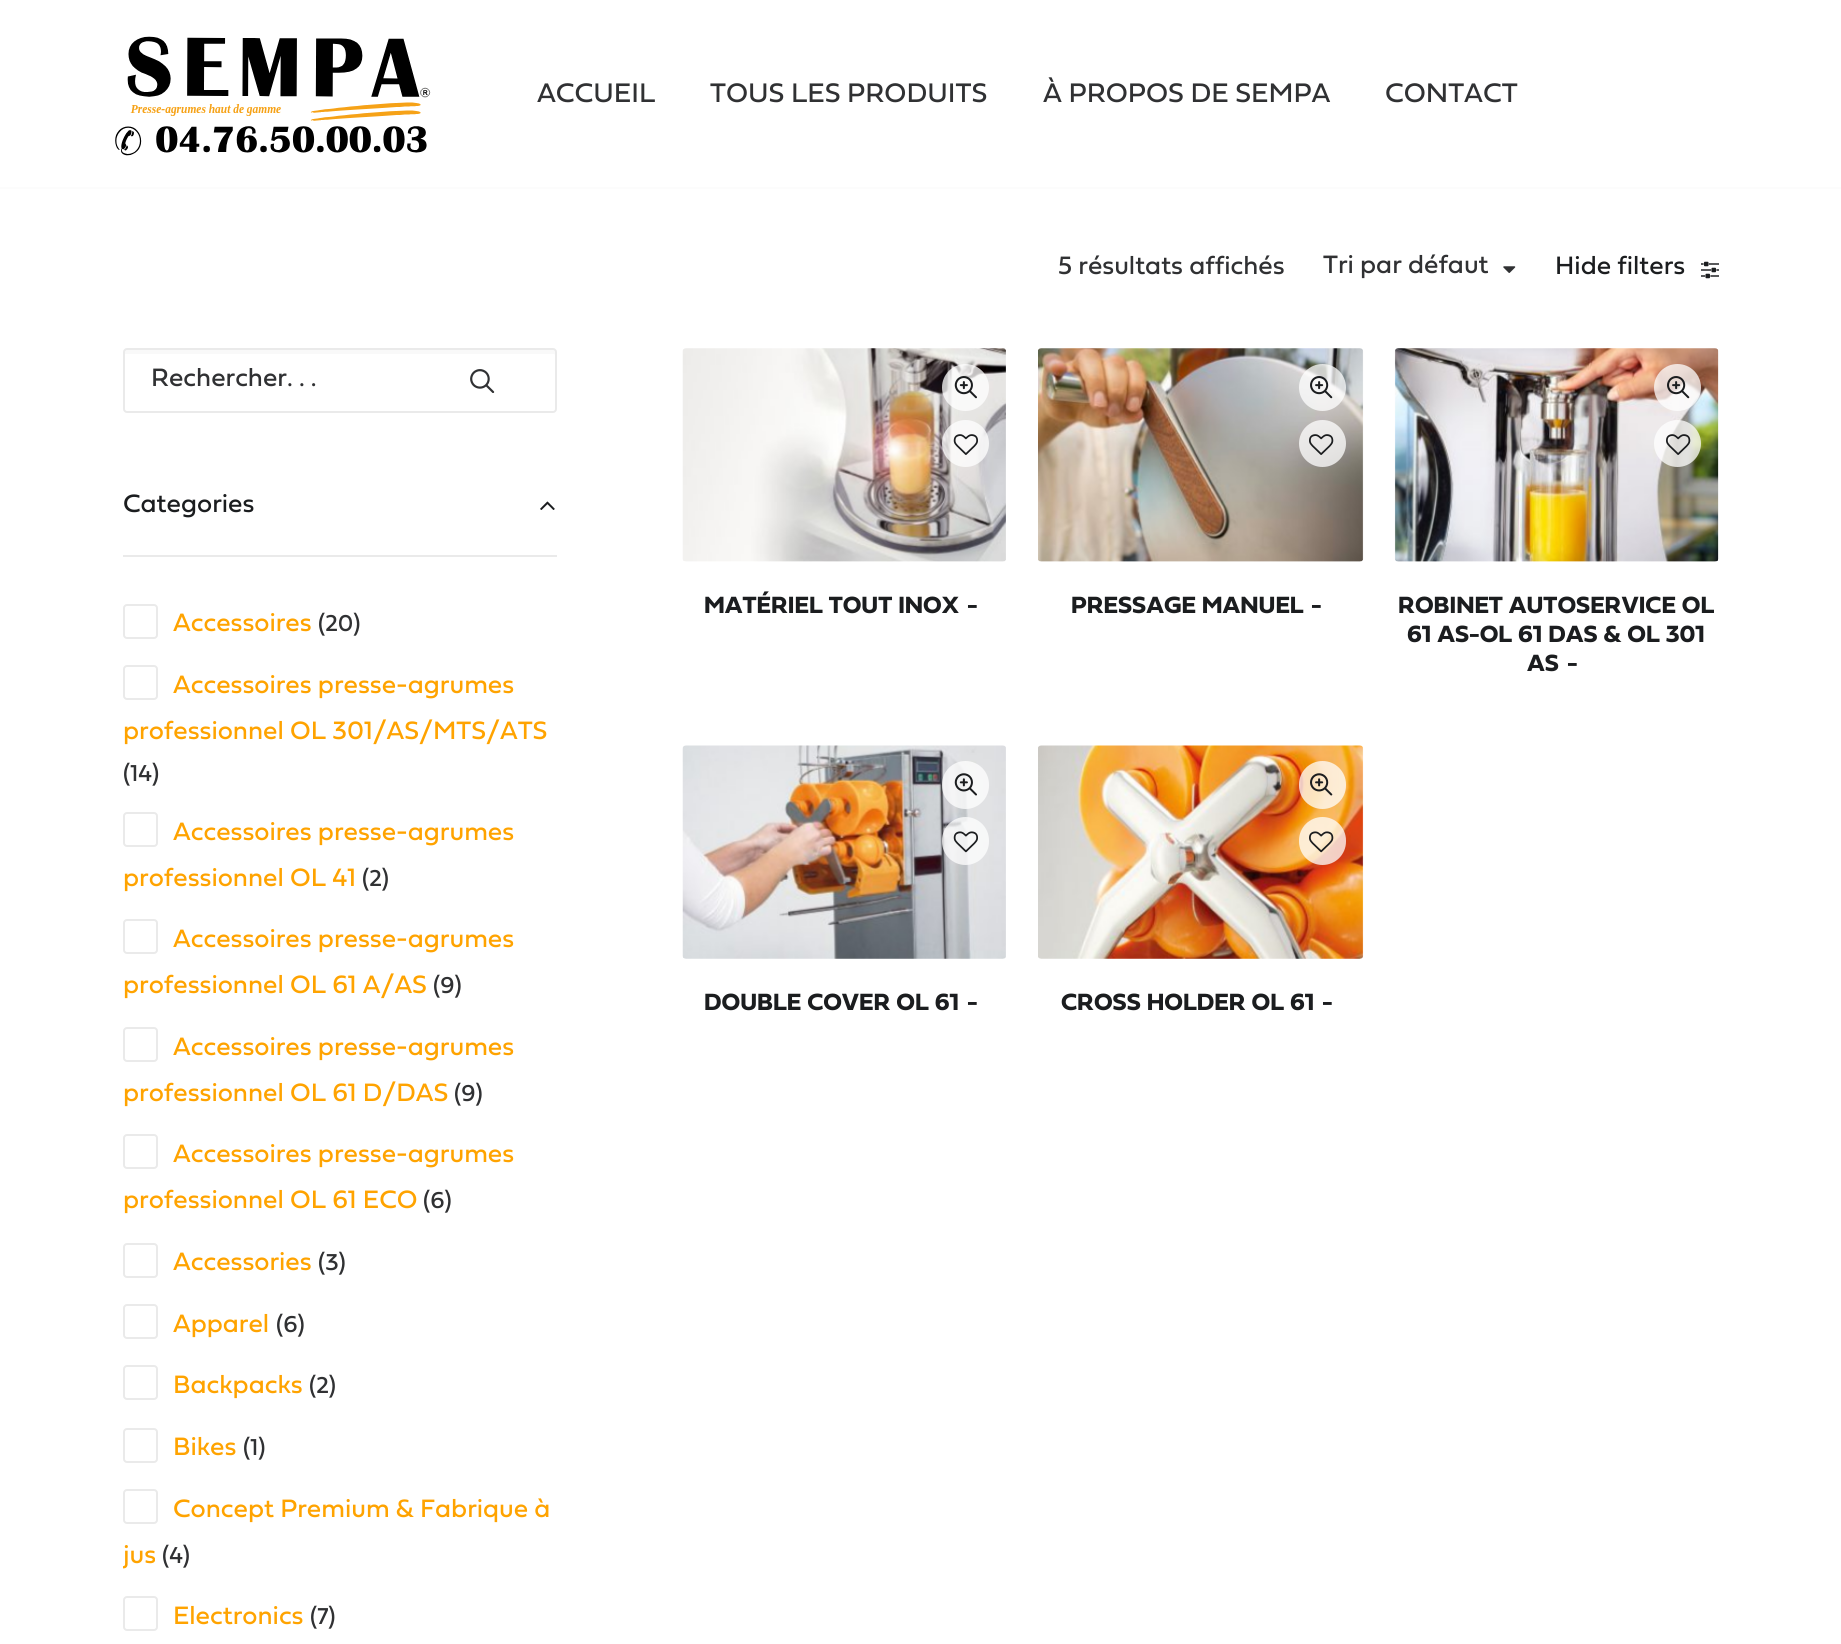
#include <cairo/cairo.h>
#include <math.h>
#include <stddef.h>

typedef struct { double x, y; const char *s; } line_t;
static cairo_t *cr;

static void rgb(unsigned color)
{
	cairo_set_source_rgb(cr, (color >> 16) / 255.0, (color >> 8 & 255) / 255.0, (color & 255) / 255.0);
}

static void rrect(double x, double y, double w, double h, double r)
{
	cairo_new_sub_path(cr);
	cairo_arc(cr, x + w - r, y + h - r, r, 0, M_PI / 2);
	cairo_arc(cr, x + r, y + h - r, r, M_PI / 2, M_PI);
	cairo_arc(cr, x + r, y + r, r, M_PI, 1.5 * M_PI);
	cairo_arc(cr, x + w - r, y + r, r, 1.5 * M_PI, 2 * M_PI);
	cairo_close_path(cr);
}

static void image(const char *path, double x, double y, double w, double h)
{
	cairo_surface_t *image = cairo_image_surface_create_from_png(path);
	cairo_save(cr);
	cairo_set_source_surface(cr, image, x, y);
	cairo_rectangle(cr, x, y, w, h);
	cairo_fill(cr);
	cairo_restore(cr);
	cairo_surface_destroy(image);
}

int main(void) {
	cairo_surface_t *surface = cairo_image_surface_create(CAIRO_FORMAT_RGB24, 1841, 1644);
	cr = cairo_create(surface);
	cairo_font_options_t *options = cairo_font_options_create();
	cairo_font_options_set_hint_metrics(options, CAIRO_HINT_METRICS_OFF);
	cairo_font_options_set_hint_style(options, CAIRO_HINT_STYLE_NONE);
	cairo_set_font_options(cr, options);
	cairo_set_miter_limit(cr, 4);
	rgb(0xffffff);
	cairo_paint(cr);
	image("img/1.png", 115, 36, 316, 120);
	rgb(0xfcfcfc);
	cairo_rectangle(cr, 0, 187, 1841, 2);
	cairo_fill(cr);
	image("img/2.png", 1503, 266, 13, 7);
	image("img/3.png", 1701, 261, 18, 18);
	rgb(0xf9f9f9);
	cairo_new_path(cr);
	cairo_move_to(cr, 126, 354);
	cairo_line_to(cr, 553, 354);
	cairo_curve_to(cr, 554, 354, 555, 354, 555, 355);
	cairo_curve_to(cr, 555, 353, 556, 350, 553, 350);
	cairo_line_to(cr, 125, 350);
	cairo_curve_to(cr, 123, 351, 124, 354, 124, 355);
	cairo_curve_to(cr, 124, 354, 125, 354, 126, 354);
	cairo_close_path(cr);
	cairo_fill(cr);
	rrect(124, 349, 432, 63, 3);
	rgb(0xeaeaea);
	cairo_stroke(cr);
	image("img/4.png", 470, 369, 25, 24);
	cairo_rectangle(cr, 123, 555, 434, 2);
	cairo_fill(cr);
	image("img/5.png", 540, 501, 15, 9);
	rrect(124, 605, 33, 33, 3);
	cairo_stroke(cr);
	rrect(124, 666, 33, 33, 3);
	cairo_stroke(cr);
	rrect(124, 813, 33, 33, 3);
	cairo_stroke(cr);
	rrect(124, 920, 33, 33, 3);
	cairo_stroke(cr);
	rrect(124, 1028, 33, 33, 3);
	cairo_stroke(cr);
	rrect(124, 1135, 33, 33, 3);
	cairo_stroke(cr);
	rrect(124, 1244, 33, 33, 3);
	cairo_stroke(cr);
	rrect(124, 1305, 33, 33, 3);
	cairo_stroke(cr);
	rrect(124, 1366, 33, 33, 3);
	cairo_stroke(cr);
	rrect(124, 1429, 33, 33, 3);
	cairo_stroke(cr);
	rrect(124, 1490, 33, 33, 3);
	cairo_stroke(cr);
	rrect(124, 1597, 33, 33, 3);
	cairo_stroke(cr);
	image("img/6.png", 682, 348, 324, 214);
	cairo_set_source_rgba(cr, 1, 1, 1, 0.75);
	cairo_arc(cr, 965.5, 387.5, 23.5, 0, 2 * M_PI);
	cairo_fill(cr);
	image("img/7.png", 954, 376, 23, 23);
	cairo_arc(cr, 965.5, 443.5, 23.5, 0, 2 * M_PI);
	cairo_fill(cr);
	image("img/8.png", 953, 434, 25, 21);
	image("img/9.png", 1038, 348, 326, 214);
	cairo_arc(cr, 1322.5, 387.5, 23.5, 0, 2 * M_PI);
	cairo_fill(cr);
	image("img/10.png", 1310, 376, 23, 23);
	cairo_arc(cr, 1322.5, 443.5, 23.5, 0, 2 * M_PI);
	cairo_fill(cr);
	image("img/11.png", 1309, 434, 25, 21);
	image("img/12.png", 1394, 348, 325, 214);
	cairo_arc(cr, 1677.5, 387.5, 23.5, 0, 2 * M_PI);
	cairo_fill(cr);
	image("img/13.png", 1667, 376, 23, 23);
	cairo_arc(cr, 1677.5, 443.5, 23.5, 0, 2 * M_PI);
	cairo_fill(cr);
	image("img/14.png", 1666, 434, 25, 21);
	image("img/15.png", 682, 745, 324, 214);
	rrect(942, 761, 47, 48, 23.5);
	cairo_fill(cr);
	image("img/16.png", 954, 773, 23, 23);
	rrect(942, 817, 47, 48, 23.5);
	cairo_fill(cr);
	image("img/17.png", 953, 831, 25, 22);
	image("img/18.png", 1038, 745, 326, 214);
	rrect(1299, 761, 47, 48, 23.5);
	cairo_fill(cr);
	image("img/19.png", 1310, 773, 23, 23);
	rrect(1299, 817, 47, 48, 23.5);
	cairo_fill(cr);
	image("img/20.png", 1309, 831, 25, 22);
	cairo_select_font_face(cr, "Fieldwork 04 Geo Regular", CAIRO_FONT_SLANT_NORMAL, CAIRO_FONT_WEIGHT_NORMAL);
	cairo_set_font_size(cr, 28);
	rgb(0x303133);
	{
		static const line_t items[] = {
			{537, 102, "ACCUEIL"},
			{710, 102, "TOUS LES PRODUITS"},
			{1043, 102, "À PROPOS DE SEMPA"},
			{1385, 102, "CONTACT"},
		};
		for (size_t i = 0; i < sizeof items / sizeof *items; i++) {
			cairo_move_to(cr, items[i].x, items[i].y);
			cairo_show_text(cr, items[i].s);
		}
	}
	cairo_set_font_size(cr, 26.25);
	cairo_move_to(cr, 1058, 274);
	cairo_show_text(cr, "5 résultats affichés");
	cairo_move_to(cr, 1323, 273);
	cairo_show_text(cr, "Tri par défaut");
	rgb(0x1b1d1f);
	cairo_move_to(cr, 1555, 274);
	cairo_show_text(cr, "Hide filters");
	cairo_save(cr);
	cairo_rectangle(cr, 151, 368, 334, 26);
	cairo_clip(cr);
	rgb(0x303133);
	cairo_move_to(cr, 151, 386);
	cairo_show_text(cr, "Rechercher. . .");
	cairo_restore(cr);
	cairo_move_to(cr, 123, 512);
	cairo_show_text(cr, "Categories");
	rgb(0xffa300);
	cairo_move_to(cr, 173, 631);
	cairo_show_text(cr, "Accessoires");
	cairo_set_font_size(cr, 24);
	rgb(0x303133);
	cairo_move_to(cr, 318, 631);
	cairo_show_text(cr, "(20)");
	cairo_set_font_size(cr, 26.25);
	rgb(0xffa300);
	cairo_move_to(cr, 173, 693);
	cairo_show_text(cr, "Accessoires presse-agrumes");
	cairo_move_to(cr, 123, 739);
	cairo_show_text(cr, "professionnel OL 301/AS/MTS/ATS");
	cairo_set_font_size(cr, 24);
	rgb(0x303133);
	cairo_move_to(cr, 123, 781);
	cairo_show_text(cr, "(14)");
	cairo_set_font_size(cr, 26.25);
	rgb(0xffa300);
	cairo_move_to(cr, 173, 840);
	cairo_show_text(cr, "Accessoires presse-agrumes");
	cairo_move_to(cr, 123, 886);
	cairo_show_text(cr, "professionnel OL 41");
	cairo_set_font_size(cr, 24);
	rgb(0x303133);
	cairo_move_to(cr, 362, 886);
	cairo_show_text(cr, "(2)");
	cairo_set_font_size(cr, 26.25);
	rgb(0xffa300);
	cairo_move_to(cr, 173, 947);
	cairo_show_text(cr, "Accessoires presse-agrumes");
	cairo_move_to(cr, 123, 993);
	cairo_show_text(cr, "professionnel OL 61 A/AS");
	cairo_set_font_size(cr, 24);
	rgb(0x303133);
	cairo_move_to(cr, 433, 993);
	cairo_show_text(cr, "(9)");
	cairo_set_font_size(cr, 26.25);
	rgb(0xffa300);
	cairo_move_to(cr, 173, 1055);
	cairo_show_text(cr, "Accessoires presse-agrumes");
	cairo_move_to(cr, 123, 1101);
	cairo_show_text(cr, "professionnel OL 61 D/DAS");
	cairo_set_font_size(cr, 24);
	rgb(0x303133);
	cairo_move_to(cr, 454, 1101);
	cairo_show_text(cr, "(9)");
	cairo_set_font_size(cr, 26.25);
	rgb(0xffa300);
	cairo_move_to(cr, 173, 1162);
	cairo_show_text(cr, "Accessoires presse-agrumes");
	cairo_move_to(cr, 123, 1208);
	cairo_show_text(cr, "professionnel OL 61 ECO");
	cairo_set_font_size(cr, 24);
	rgb(0x303133);
	cairo_move_to(cr, 423, 1208);
	cairo_show_text(cr, "(6)");
	cairo_set_font_size(cr, 26.25);
	rgb(0xffa300);
	cairo_move_to(cr, 173, 1270);
	cairo_show_text(cr, "Accessories");
	cairo_set_font_size(cr, 24);
	rgb(0x303133);
	cairo_move_to(cr, 318, 1270);
	cairo_show_text(cr, "(3)");
	cairo_set_font_size(cr, 26.25);
	rgb(0xffa300);
	cairo_move_to(cr, 173, 1332);
	cairo_show_text(cr, "Apparel");
	cairo_set_font_size(cr, 24);
	rgb(0x303133);
	cairo_move_to(cr, 276, 1332);
	cairo_show_text(cr, "(6)");
	cairo_set_font_size(cr, 26.25);
	rgb(0xffa300);
	cairo_move_to(cr, 173, 1393);
	cairo_show_text(cr, "Backpacks");
	cairo_set_font_size(cr, 24);
	rgb(0x303133);
	cairo_move_to(cr, 309, 1393);
	cairo_show_text(cr, "(2)");
	cairo_set_font_size(cr, 26.25);
	rgb(0xffa300);
	cairo_move_to(cr, 173, 1455);
	cairo_show_text(cr, "Bikes");
	cairo_set_font_size(cr, 24);
	rgb(0x303133);
	cairo_move_to(cr, 243, 1455);
	cairo_show_text(cr, "(1)");
	cairo_set_font_size(cr, 26.25);
	rgb(0xffa300);
	cairo_move_to(cr, 173, 1517);
	cairo_show_text(cr, "Concept Premium & Fabrique à");
	cairo_save(cr);
	cairo_rectangle(cr, 123, 557, 434, 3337);
	cairo_clip(cr);
	cairo_move_to(cr, 123, 1563);
	cairo_show_text(cr, "jus");
	cairo_restore(cr);
	cairo_set_font_size(cr, 24);
	rgb(0x303133);
	cairo_move_to(cr, 162, 1563);
	cairo_show_text(cr, "(4)");
	cairo_set_font_size(cr, 26.25);
	rgb(0xffa300);
	cairo_move_to(cr, 173, 1624);
	cairo_show_text(cr, "Electronics");
	cairo_set_font_size(cr, 24);
	rgb(0x303133);
	cairo_move_to(cr, 310, 1624);
	cairo_show_text(cr, "(7)");
	cairo_select_font_face(cr, "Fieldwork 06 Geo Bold", CAIRO_FONT_SLANT_NORMAL, CAIRO_FONT_WEIGHT_BOLD);
	cairo_set_font_size(cr, 24.5);
	rgb(0x1b1d1f);
	{
		static const line_t items[] = {
			{704, 613, "MATÉRIEL TOUT INOX"},
			{967, 613, "-"},
			{1071, 613, "PRESSAGE MANUEL"},
			{1311, 613, "-"},
			{1398, 613, "ROBINET AUTOSERVICE OL"},
			{1407, 642, "61 AS-OL 61 DAS & OL 301"},
			{1527, 671, "AS"},
			{1567, 671, "-"},
			{704, 1010, "DOUBLE COVER OL 61"},
			{967, 1010, "-"},
			{1061, 1010, "CROSS HOLDER OL 61"},
			{1322, 1010, "-"},
		};
		for (size_t i = 0; i < sizeof items / sizeof *items; i++) {
			cairo_move_to(cr, items[i].x, items[i].y);
			cairo_show_text(cr, items[i].s);
		}
	}
	cairo_surface_write_to_png(surface, "page.png");
	cairo_font_options_destroy(options);
	cairo_destroy(cr);
	cairo_surface_destroy(surface);
	return 0;
}
